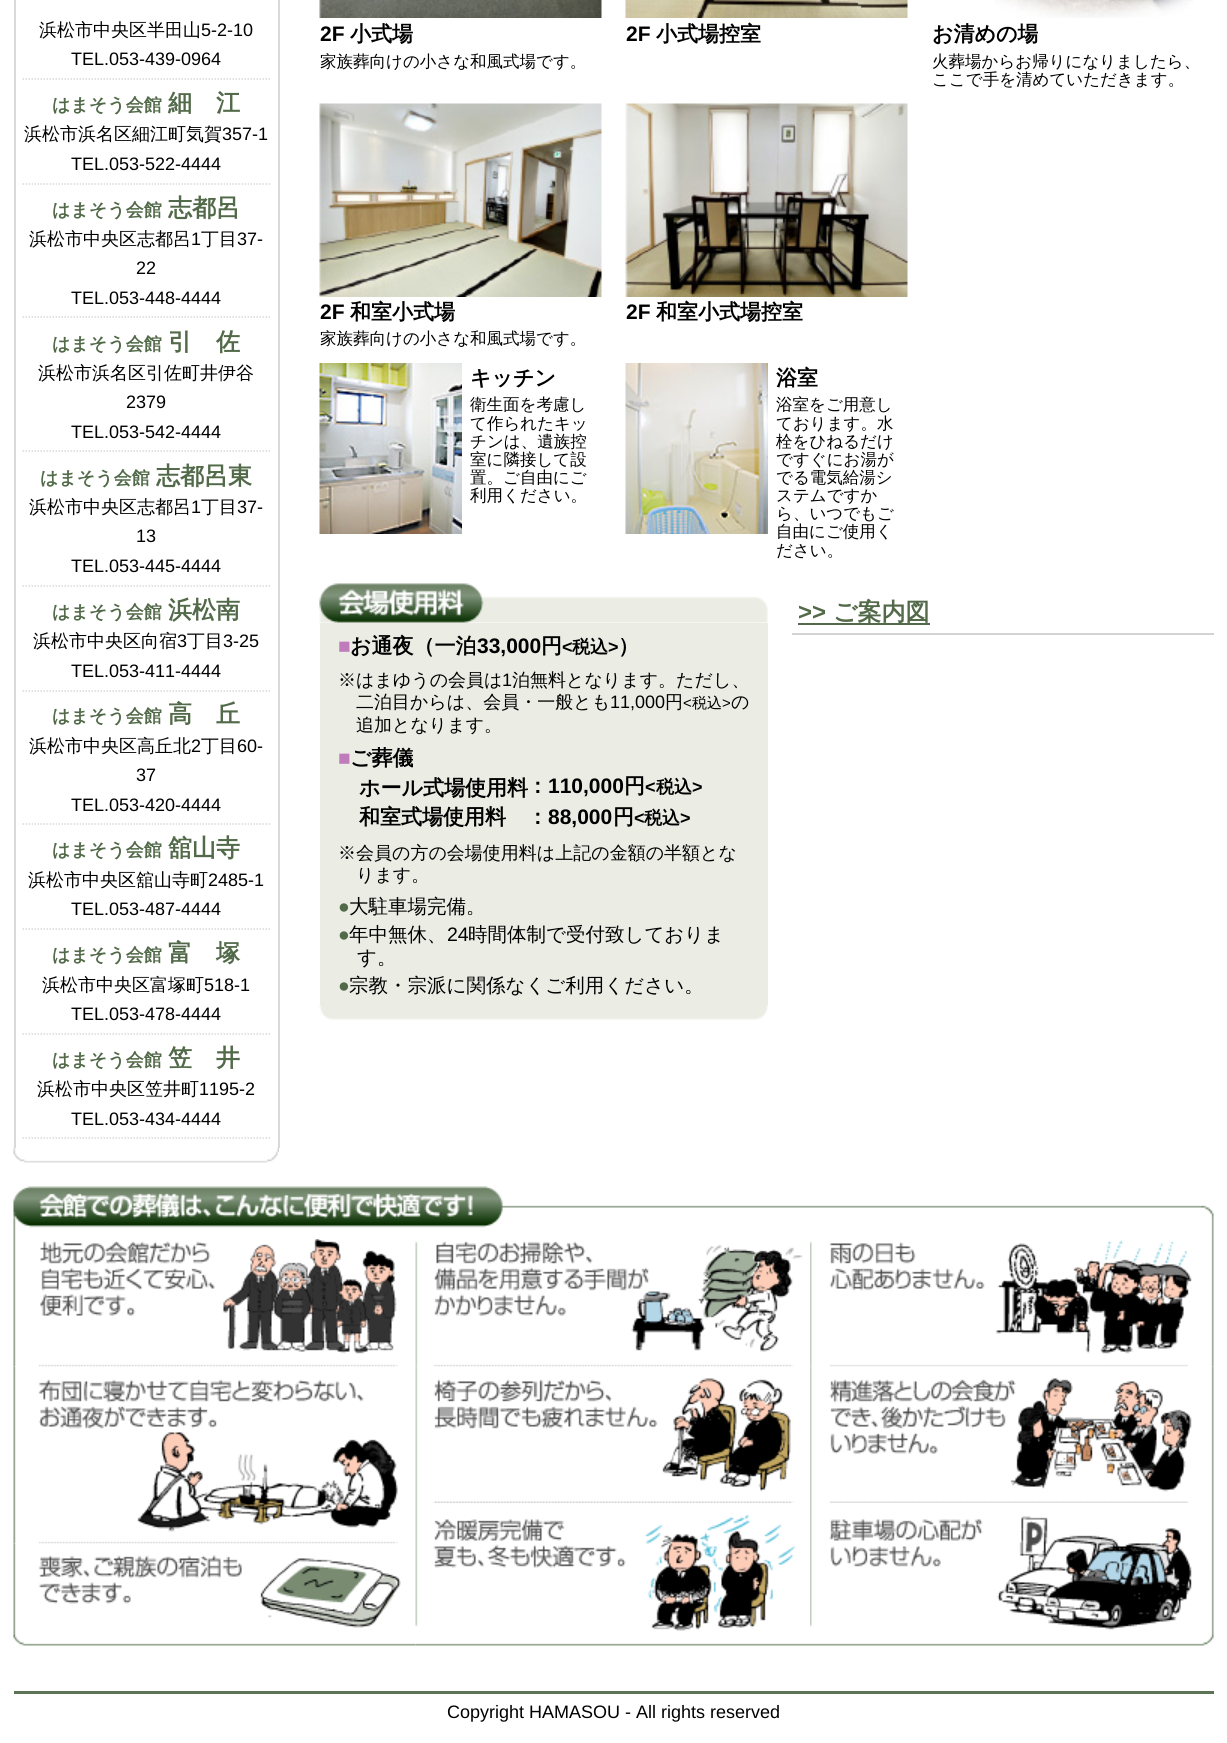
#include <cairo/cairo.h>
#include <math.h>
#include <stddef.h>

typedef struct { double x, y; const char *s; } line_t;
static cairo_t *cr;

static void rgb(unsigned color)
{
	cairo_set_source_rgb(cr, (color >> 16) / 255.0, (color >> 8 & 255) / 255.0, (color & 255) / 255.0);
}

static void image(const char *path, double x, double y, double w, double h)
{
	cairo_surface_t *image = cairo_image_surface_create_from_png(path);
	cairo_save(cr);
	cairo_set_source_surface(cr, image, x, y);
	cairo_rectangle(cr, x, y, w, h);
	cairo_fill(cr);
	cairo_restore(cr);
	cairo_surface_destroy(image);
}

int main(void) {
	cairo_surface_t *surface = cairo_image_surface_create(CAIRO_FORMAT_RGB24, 1227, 1743);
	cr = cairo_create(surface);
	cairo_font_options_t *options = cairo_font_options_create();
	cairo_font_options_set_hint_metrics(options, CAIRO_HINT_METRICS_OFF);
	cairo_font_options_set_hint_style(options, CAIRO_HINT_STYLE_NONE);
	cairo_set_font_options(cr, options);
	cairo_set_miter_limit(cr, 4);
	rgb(0xffffff);
	cairo_paint(cr);
	image("img/1.png", 13, 1147, 266, 16);
	rgb(0xd9d9d9);
	cairo_rectangle(cr, 278, 0, 2, 1148);
	cairo_fill(cr);
	cairo_rectangle(cr, 14, 0, 2, 1148);
	cairo_fill(cr);
	cairo_new_path(cr);
	cairo_move_to(cr, 22.5, 79);
	cairo_line_to(cr, 270, 79);
	cairo_set_line_width(cr, 1.5);
	cairo_set_dash(cr, (double[]){1.5, 1.5}, 2, 0);
	cairo_stroke(cr);
	cairo_new_path(cr);
	cairo_move_to(cr, 22.5, 184);
	cairo_line_to(cr, 270, 184);
	cairo_stroke(cr);
	cairo_new_path(cr);
	cairo_move_to(cr, 22.5, 317);
	cairo_line_to(cr, 270, 317);
	cairo_stroke(cr);
	cairo_new_path(cr);
	cairo_move_to(cr, 22.5, 451);
	cairo_line_to(cr, 270, 451);
	cairo_stroke(cr);
	cairo_new_path(cr);
	cairo_move_to(cr, 22.5, 586);
	cairo_line_to(cr, 270, 586);
	cairo_stroke(cr);
	cairo_new_path(cr);
	cairo_move_to(cr, 22.5, 691);
	cairo_line_to(cr, 270, 691);
	cairo_stroke(cr);
	cairo_new_path(cr);
	cairo_move_to(cr, 22.5, 824);
	cairo_line_to(cr, 270, 824);
	cairo_stroke(cr);
	cairo_new_path(cr);
	cairo_move_to(cr, 22.5, 929);
	cairo_line_to(cr, 270, 929);
	cairo_stroke(cr);
	cairo_new_path(cr);
	cairo_move_to(cr, 22.5, 1034);
	cairo_line_to(cr, 270, 1034);
	cairo_stroke(cr);
	cairo_new_path(cr);
	cairo_move_to(cr, 22.5, 1138);
	cairo_line_to(cr, 270, 1138);
	cairo_stroke(cr);
	image("img/2.png", 319, 0, 283, 18);
	image("img/3.png", 625, 0, 283, 18);
	image("img/4.png", 995, 0, 198, 18);
	image("img/5.png", 319, 103, 283, 194);
	image("img/6.png", 625, 103, 283, 194);
	image("img/7.png", 319, 363, 143, 171);
	image("img/8.png", 625, 363, 143, 171);
	rgb(0xd3d3d3);
	cairo_rectangle(cr, 792, 633, 422, 2);
	cairo_fill(cr);
	rgb(0x526a49);
	cairo_rectangle(cr, 798, 623, 132, 2);
	cairo_fill(cr);
	image("img/9.png", 319, 583, 449, 40);
	rgb(0xebede5);
	cairo_rectangle(cr, 320, 623, 448, 382);
	cairo_fill(cr);
	image("img/10.png", 319, 1005, 449, 15);
	image("img/11.png", 13, 1186, 1201, 53);
	image("img/12.png", 13, 1239, 385, 128);
	image("img/13.png", 13, 1366, 385, 178);
	image("img/14.png", 13, 1543, 403, 103);
	image("img/15.png", 415, 1241, 388, 126);
	image("img/16.png", 415, 1366, 379, 137);
	image("img/17.png", 415, 1503, 395, 143);
	image("img/18.png", 810, 1239, 404, 128);
	image("img/19.png", 810, 1366, 404, 137);
	image("img/20.png", 810, 1503, 404, 143);
	rgb(0x5c7455);
	cairo_rectangle(cr, 14, 1691, 1200, 3);
	cairo_fill(cr);
	cairo_select_font_face(cr, "WenQuanYi Zen Hei Medium", CAIRO_FONT_SLANT_NORMAL, CAIRO_FONT_WEIGHT_NORMAL);
	cairo_set_font_size(cr, 18);
	rgb(0x000000);
	cairo_move_to(cr, 39, 36);
	cairo_show_text(cr, "浜松市中央区半田山");
	cairo_select_font_face(cr, "Liberation Sans", CAIRO_FONT_SLANT_NORMAL, CAIRO_FONT_WEIGHT_NORMAL);
	cairo_move_to(cr, 201, 36);
	cairo_show_text(cr, "5-2-10");
	cairo_move_to(cr, 71, 65);
	cairo_show_text(cr, "TEL.053-439-0964");
	cairo_select_font_face(cr, "WenQuanYi Zen Hei", CAIRO_FONT_SLANT_NORMAL, CAIRO_FONT_WEIGHT_BOLD);
	rgb(0x526a49);
	cairo_move_to(cr, 52, 111);
	cairo_show_text(cr, "はまそう会館");
	cairo_set_font_size(cr, 24);
	cairo_move_to(cr, 168, 111);
	cairo_show_text(cr, "細　江");
	cairo_select_font_face(cr, "WenQuanYi Zen Hei Medium", CAIRO_FONT_SLANT_NORMAL, CAIRO_FONT_WEIGHT_NORMAL);
	cairo_set_font_size(cr, 18);
	rgb(0x000000);
	cairo_move_to(cr, 24, 140);
	cairo_show_text(cr, "浜松市浜名区細江町気賀");
	cairo_select_font_face(cr, "Liberation Sans", CAIRO_FONT_SLANT_NORMAL, CAIRO_FONT_WEIGHT_NORMAL);
	cairo_move_to(cr, 222, 140);
	cairo_show_text(cr, "357-1");
	cairo_move_to(cr, 71, 170);
	cairo_show_text(cr, "TEL.053-522-4444");
	cairo_select_font_face(cr, "WenQuanYi Zen Hei", CAIRO_FONT_SLANT_NORMAL, CAIRO_FONT_WEIGHT_BOLD);
	rgb(0x526a49);
	cairo_move_to(cr, 52, 216);
	cairo_show_text(cr, "はまそう会館");
	cairo_set_font_size(cr, 24);
	cairo_move_to(cr, 168, 216);
	cairo_show_text(cr, "志都呂");
	cairo_select_font_face(cr, "WenQuanYi Zen Hei Medium", CAIRO_FONT_SLANT_NORMAL, CAIRO_FONT_WEIGHT_NORMAL);
	cairo_set_font_size(cr, 18);
	rgb(0x000000);
	cairo_move_to(cr, 29, 245);
	cairo_show_text(cr, "浜松市中央区志都呂");
	cairo_select_font_face(cr, "Liberation Sans", CAIRO_FONT_SLANT_NORMAL, CAIRO_FONT_WEIGHT_NORMAL);
	cairo_move_to(cr, 191, 245);
	cairo_show_text(cr, "1");
	cairo_select_font_face(cr, "WenQuanYi Zen Hei Medium", CAIRO_FONT_SLANT_NORMAL, CAIRO_FONT_WEIGHT_NORMAL);
	cairo_move_to(cr, 201, 245);
	cairo_show_text(cr, "丁目");
	cairo_select_font_face(cr, "Liberation Sans", CAIRO_FONT_SLANT_NORMAL, CAIRO_FONT_WEIGHT_NORMAL);
	{
		static const line_t items[] = {
			{237, 245, "37-"},
			{136, 274, "22"},
			{71, 304, "TEL.053-448-4444"},
		};
		for (size_t i = 0; i < sizeof items / sizeof *items; i++) {
			cairo_move_to(cr, items[i].x, items[i].y);
			cairo_show_text(cr, items[i].s);
		}
	}
	cairo_select_font_face(cr, "WenQuanYi Zen Hei", CAIRO_FONT_SLANT_NORMAL, CAIRO_FONT_WEIGHT_BOLD);
	rgb(0x526a49);
	cairo_move_to(cr, 52, 350);
	cairo_show_text(cr, "はまそう会館");
	cairo_set_font_size(cr, 24);
	cairo_move_to(cr, 168, 350);
	cairo_show_text(cr, "引　佐");
	cairo_select_font_face(cr, "WenQuanYi Zen Hei Medium", CAIRO_FONT_SLANT_NORMAL, CAIRO_FONT_WEIGHT_NORMAL);
	cairo_set_font_size(cr, 18);
	rgb(0x000000);
	cairo_move_to(cr, 38, 379);
	cairo_show_text(cr, "浜松市浜名区引佐町井伊谷");
	cairo_select_font_face(cr, "Liberation Sans", CAIRO_FONT_SLANT_NORMAL, CAIRO_FONT_WEIGHT_NORMAL);
	cairo_move_to(cr, 126, 408);
	cairo_show_text(cr, "2379");
	cairo_move_to(cr, 71, 438);
	cairo_show_text(cr, "TEL.053-542-4444");
	cairo_select_font_face(cr, "WenQuanYi Zen Hei", CAIRO_FONT_SLANT_NORMAL, CAIRO_FONT_WEIGHT_BOLD);
	rgb(0x526a49);
	cairo_move_to(cr, 40, 484);
	cairo_show_text(cr, "はまそう会館");
	cairo_set_font_size(cr, 24);
	cairo_move_to(cr, 156, 484);
	cairo_show_text(cr, "志都呂東");
	cairo_select_font_face(cr, "WenQuanYi Zen Hei Medium", CAIRO_FONT_SLANT_NORMAL, CAIRO_FONT_WEIGHT_NORMAL);
	cairo_set_font_size(cr, 18);
	rgb(0x000000);
	cairo_move_to(cr, 29, 513);
	cairo_show_text(cr, "浜松市中央区志都呂");
	cairo_select_font_face(cr, "Liberation Sans", CAIRO_FONT_SLANT_NORMAL, CAIRO_FONT_WEIGHT_NORMAL);
	cairo_move_to(cr, 191, 513);
	cairo_show_text(cr, "1");
	cairo_select_font_face(cr, "WenQuanYi Zen Hei Medium", CAIRO_FONT_SLANT_NORMAL, CAIRO_FONT_WEIGHT_NORMAL);
	cairo_move_to(cr, 201, 513);
	cairo_show_text(cr, "丁目");
	cairo_select_font_face(cr, "Liberation Sans", CAIRO_FONT_SLANT_NORMAL, CAIRO_FONT_WEIGHT_NORMAL);
	{
		static const line_t items[] = {
			{237, 513, "37-"},
			{136, 542, "13"},
			{71, 572, "TEL.053-445-4444"},
		};
		for (size_t i = 0; i < sizeof items / sizeof *items; i++) {
			cairo_move_to(cr, items[i].x, items[i].y);
			cairo_show_text(cr, items[i].s);
		}
	}
	cairo_select_font_face(cr, "WenQuanYi Zen Hei", CAIRO_FONT_SLANT_NORMAL, CAIRO_FONT_WEIGHT_BOLD);
	rgb(0x526a49);
	cairo_move_to(cr, 52, 618);
	cairo_show_text(cr, "はまそう会館");
	cairo_set_font_size(cr, 24);
	cairo_move_to(cr, 168, 618);
	cairo_show_text(cr, "浜松南");
	cairo_select_font_face(cr, "WenQuanYi Zen Hei Medium", CAIRO_FONT_SLANT_NORMAL, CAIRO_FONT_WEIGHT_NORMAL);
	cairo_set_font_size(cr, 18);
	rgb(0x000000);
	cairo_move_to(cr, 33, 647);
	cairo_show_text(cr, "浜松市中央区向宿");
	cairo_select_font_face(cr, "Liberation Sans", CAIRO_FONT_SLANT_NORMAL, CAIRO_FONT_WEIGHT_NORMAL);
	cairo_move_to(cr, 177, 647);
	cairo_show_text(cr, "3");
	cairo_select_font_face(cr, "WenQuanYi Zen Hei Medium", CAIRO_FONT_SLANT_NORMAL, CAIRO_FONT_WEIGHT_NORMAL);
	cairo_move_to(cr, 187, 647);
	cairo_show_text(cr, "丁目");
	cairo_select_font_face(cr, "Liberation Sans", CAIRO_FONT_SLANT_NORMAL, CAIRO_FONT_WEIGHT_NORMAL);
	cairo_move_to(cr, 223, 647);
	cairo_show_text(cr, "3-25");
	cairo_move_to(cr, 71, 677);
	cairo_show_text(cr, "TEL.053-411-4444");
	cairo_select_font_face(cr, "WenQuanYi Zen Hei", CAIRO_FONT_SLANT_NORMAL, CAIRO_FONT_WEIGHT_BOLD);
	rgb(0x526a49);
	cairo_move_to(cr, 52, 722);
	cairo_show_text(cr, "はまそう会館");
	cairo_set_font_size(cr, 24);
	cairo_move_to(cr, 168, 722);
	cairo_show_text(cr, "高　丘");
	cairo_select_font_face(cr, "WenQuanYi Zen Hei Medium", CAIRO_FONT_SLANT_NORMAL, CAIRO_FONT_WEIGHT_NORMAL);
	cairo_set_font_size(cr, 18);
	rgb(0x000000);
	cairo_move_to(cr, 29, 752);
	cairo_show_text(cr, "浜松市中央区高丘北");
	cairo_select_font_face(cr, "Liberation Sans", CAIRO_FONT_SLANT_NORMAL, CAIRO_FONT_WEIGHT_NORMAL);
	cairo_move_to(cr, 191, 752);
	cairo_show_text(cr, "2");
	cairo_select_font_face(cr, "WenQuanYi Zen Hei Medium", CAIRO_FONT_SLANT_NORMAL, CAIRO_FONT_WEIGHT_NORMAL);
	cairo_move_to(cr, 201, 752);
	cairo_show_text(cr, "丁目");
	cairo_select_font_face(cr, "Liberation Sans", CAIRO_FONT_SLANT_NORMAL, CAIRO_FONT_WEIGHT_NORMAL);
	{
		static const line_t items[] = {
			{237, 752, "60-"},
			{136, 781, "37"},
			{71, 811, "TEL.053-420-4444"},
		};
		for (size_t i = 0; i < sizeof items / sizeof *items; i++) {
			cairo_move_to(cr, items[i].x, items[i].y);
			cairo_show_text(cr, items[i].s);
		}
	}
	cairo_select_font_face(cr, "WenQuanYi Zen Hei", CAIRO_FONT_SLANT_NORMAL, CAIRO_FONT_WEIGHT_BOLD);
	rgb(0x526a49);
	cairo_move_to(cr, 52, 856);
	cairo_show_text(cr, "はまそう会館");
	cairo_set_font_size(cr, 24);
	cairo_move_to(cr, 168, 856);
	cairo_show_text(cr, "舘山寺");
	cairo_select_font_face(cr, "WenQuanYi Zen Hei Medium", CAIRO_FONT_SLANT_NORMAL, CAIRO_FONT_WEIGHT_NORMAL);
	cairo_set_font_size(cr, 18);
	rgb(0x000000);
	cairo_move_to(cr, 28, 886);
	cairo_show_text(cr, "浜松市中央区舘山寺町");
	cairo_select_font_face(cr, "Liberation Sans", CAIRO_FONT_SLANT_NORMAL, CAIRO_FONT_WEIGHT_NORMAL);
	cairo_move_to(cr, 208, 886);
	cairo_show_text(cr, "2485-1");
	cairo_move_to(cr, 71, 915);
	cairo_show_text(cr, "TEL.053-487-4444");
	cairo_select_font_face(cr, "WenQuanYi Zen Hei", CAIRO_FONT_SLANT_NORMAL, CAIRO_FONT_WEIGHT_BOLD);
	rgb(0x526a49);
	cairo_move_to(cr, 52, 961);
	cairo_show_text(cr, "はまそう会館");
	cairo_set_font_size(cr, 24);
	cairo_move_to(cr, 168, 961);
	cairo_show_text(cr, "富　塚");
	cairo_select_font_face(cr, "WenQuanYi Zen Hei Medium", CAIRO_FONT_SLANT_NORMAL, CAIRO_FONT_WEIGHT_NORMAL);
	cairo_set_font_size(cr, 18);
	rgb(0x000000);
	cairo_move_to(cr, 42, 991);
	cairo_show_text(cr, "浜松市中央区富塚町");
	cairo_select_font_face(cr, "Liberation Sans", CAIRO_FONT_SLANT_NORMAL, CAIRO_FONT_WEIGHT_NORMAL);
	cairo_move_to(cr, 204, 991);
	cairo_show_text(cr, "518-1");
	cairo_move_to(cr, 71, 1020);
	cairo_show_text(cr, "TEL.053-478-4444");
	cairo_select_font_face(cr, "WenQuanYi Zen Hei", CAIRO_FONT_SLANT_NORMAL, CAIRO_FONT_WEIGHT_BOLD);
	rgb(0x526a49);
	cairo_move_to(cr, 52, 1066);
	cairo_show_text(cr, "はまそう会館");
	cairo_set_font_size(cr, 24);
	cairo_move_to(cr, 168, 1066);
	cairo_show_text(cr, "笠　井");
	cairo_select_font_face(cr, "WenQuanYi Zen Hei Medium", CAIRO_FONT_SLANT_NORMAL, CAIRO_FONT_WEIGHT_NORMAL);
	cairo_set_font_size(cr, 18);
	rgb(0x000000);
	cairo_move_to(cr, 37, 1095);
	cairo_show_text(cr, "浜松市中央区笠井町");
	cairo_select_font_face(cr, "Liberation Sans", CAIRO_FONT_SLANT_NORMAL, CAIRO_FONT_WEIGHT_NORMAL);
	cairo_move_to(cr, 199, 1095);
	cairo_show_text(cr, "1195-2");
	cairo_move_to(cr, 71, 1125);
	cairo_show_text(cr, "TEL.053-434-4444");
	cairo_select_font_face(cr, "Liberation Sans", CAIRO_FONT_SLANT_NORMAL, CAIRO_FONT_WEIGHT_BOLD);
	cairo_set_font_size(cr, 21);
	cairo_move_to(cr, 320, 41);
	cairo_show_text(cr, "2F");
	cairo_select_font_face(cr, "WenQuanYi Zen Hei", CAIRO_FONT_SLANT_NORMAL, CAIRO_FONT_WEIGHT_BOLD);
	cairo_move_to(cr, 350, 41);
	cairo_show_text(cr, "小式場");
	cairo_select_font_face(cr, "WenQuanYi Zen Hei Medium", CAIRO_FONT_SLANT_NORMAL, CAIRO_FONT_WEIGHT_NORMAL);
	cairo_set_font_size(cr, 16.5);
	cairo_move_to(cr, 320, 67);
	cairo_show_text(cr, "家族葬向けの小さな和風式場です。");
	cairo_select_font_face(cr, "Liberation Sans", CAIRO_FONT_SLANT_NORMAL, CAIRO_FONT_WEIGHT_BOLD);
	cairo_set_font_size(cr, 21);
	cairo_move_to(cr, 626, 41);
	cairo_show_text(cr, "2F");
	cairo_select_font_face(cr, "WenQuanYi Zen Hei", CAIRO_FONT_SLANT_NORMAL, CAIRO_FONT_WEIGHT_BOLD);
	cairo_move_to(cr, 656, 41);
	cairo_show_text(cr, "小式場控室");
	cairo_move_to(cr, 932, 41);
	cairo_show_text(cr, "お清めの場");
	cairo_select_font_face(cr, "WenQuanYi Zen Hei Medium", CAIRO_FONT_SLANT_NORMAL, CAIRO_FONT_WEIGHT_NORMAL);
	cairo_set_font_size(cr, 16.5);
	cairo_move_to(cr, 932, 67);
	cairo_show_text(cr, "火葬場からお帰りになりましたら、");
	cairo_move_to(cr, 932, 85);
	cairo_show_text(cr, "ここで手を清めていただきます。");
	cairo_select_font_face(cr, "Liberation Sans", CAIRO_FONT_SLANT_NORMAL, CAIRO_FONT_WEIGHT_BOLD);
	cairo_set_font_size(cr, 21);
	cairo_move_to(cr, 320, 319);
	cairo_show_text(cr, "2F");
	cairo_select_font_face(cr, "WenQuanYi Zen Hei", CAIRO_FONT_SLANT_NORMAL, CAIRO_FONT_WEIGHT_BOLD);
	cairo_move_to(cr, 350, 319);
	cairo_show_text(cr, "和室小式場");
	cairo_select_font_face(cr, "WenQuanYi Zen Hei Medium", CAIRO_FONT_SLANT_NORMAL, CAIRO_FONT_WEIGHT_NORMAL);
	cairo_set_font_size(cr, 16.5);
	cairo_move_to(cr, 320, 344);
	cairo_show_text(cr, "家族葬向けの小さな和風式場です。");
	cairo_select_font_face(cr, "Liberation Sans", CAIRO_FONT_SLANT_NORMAL, CAIRO_FONT_WEIGHT_BOLD);
	cairo_set_font_size(cr, 21);
	cairo_move_to(cr, 626, 319);
	cairo_show_text(cr, "2F");
	cairo_select_font_face(cr, "WenQuanYi Zen Hei", CAIRO_FONT_SLANT_NORMAL, CAIRO_FONT_WEIGHT_BOLD);
	cairo_move_to(cr, 656, 319);
	cairo_show_text(cr, "和室小式場控室");
	cairo_move_to(cr, 470, 385);
	cairo_show_text(cr, "キッチン");
	cairo_select_font_face(cr, "WenQuanYi Zen Hei Medium", CAIRO_FONT_SLANT_NORMAL, CAIRO_FONT_WEIGHT_NORMAL);
	cairo_set_font_size(cr, 16.5);
	{
		static const line_t items[] = {
			{470, 410, "衛生面を考慮し"},
			{470, 429, "て作られたキッ"},
			{470, 447, "チンは、遺族控"},
			{470, 465, "室に隣接して設"},
			{470, 483, "置。ご自由にご"},
			{470, 501, "利用ください。"},
		};
		for (size_t i = 0; i < sizeof items / sizeof *items; i++) {
			cairo_move_to(cr, items[i].x, items[i].y);
			cairo_show_text(cr, items[i].s);
		}
	}
	cairo_select_font_face(cr, "WenQuanYi Zen Hei", CAIRO_FONT_SLANT_NORMAL, CAIRO_FONT_WEIGHT_BOLD);
	cairo_set_font_size(cr, 21);
	cairo_move_to(cr, 776, 385);
	cairo_show_text(cr, "浴室");
	cairo_select_font_face(cr, "WenQuanYi Zen Hei Medium", CAIRO_FONT_SLANT_NORMAL, CAIRO_FONT_WEIGHT_NORMAL);
	cairo_set_font_size(cr, 16.5);
	{
		static const line_t items[] = {
			{776, 410, "浴室をご用意し"},
			{776, 429, "ております。水"},
			{776, 447, "栓をひねるだけ"},
			{776, 465, "ですぐにお湯が"},
			{776, 483, "でる電気給湯シ"},
			{776, 501, "ステムですか"},
			{776, 519, "ら、いつでもご"},
			{776, 537, "自由にご使用く"},
			{776, 556, "ださい。"},
		};
		for (size_t i = 0; i < sizeof items / sizeof *items; i++) {
			cairo_move_to(cr, items[i].x, items[i].y);
			cairo_show_text(cr, items[i].s);
		}
	}
	cairo_select_font_face(cr, "Liberation Sans", CAIRO_FONT_SLANT_NORMAL, CAIRO_FONT_WEIGHT_BOLD);
	cairo_set_font_size(cr, 24);
	rgb(0x526a49);
	cairo_move_to(cr, 798, 620);
	cairo_show_text(cr, ">>");
	cairo_select_font_face(cr, "WenQuanYi Zen Hei", CAIRO_FONT_SLANT_NORMAL, CAIRO_FONT_WEIGHT_BOLD);
	cairo_move_to(cr, 833, 620);
	cairo_show_text(cr, "ご案内図");
	cairo_select_font_face(cr, "Liberation Sans", CAIRO_FONT_SLANT_NORMAL, CAIRO_FONT_WEIGHT_BOLD);
	cairo_set_font_size(cr, 21);
	rgb(0xbf7bba);
	cairo_move_to(cr, 338, 653);
	cairo_show_text(cr, "■");
	cairo_select_font_face(cr, "WenQuanYi Zen Hei", CAIRO_FONT_SLANT_NORMAL, CAIRO_FONT_WEIGHT_BOLD);
	rgb(0x000000);
	cairo_move_to(cr, 350, 653);
	cairo_show_text(cr, "お通夜（一泊");
	cairo_select_font_face(cr, "Liberation Sans", CAIRO_FONT_SLANT_NORMAL, CAIRO_FONT_WEIGHT_BOLD);
	cairo_move_to(cr, 477, 653);
	cairo_show_text(cr, "33,000");
	cairo_select_font_face(cr, "WenQuanYi Zen Hei", CAIRO_FONT_SLANT_NORMAL, CAIRO_FONT_WEIGHT_BOLD);
	cairo_move_to(cr, 541, 653);
	cairo_show_text(cr, "円");
	cairo_select_font_face(cr, "Liberation Sans", CAIRO_FONT_SLANT_NORMAL, CAIRO_FONT_WEIGHT_BOLD);
	cairo_set_font_size(cr, 18);
	cairo_move_to(cr, 562, 653);
	cairo_show_text(cr, "<");
	cairo_select_font_face(cr, "WenQuanYi Zen Hei", CAIRO_FONT_SLANT_NORMAL, CAIRO_FONT_WEIGHT_BOLD);
	cairo_move_to(cr, 572, 653);
	cairo_show_text(cr, "税込");
	cairo_select_font_face(cr, "Liberation Sans", CAIRO_FONT_SLANT_NORMAL, CAIRO_FONT_WEIGHT_BOLD);
	cairo_move_to(cr, 608, 653);
	cairo_show_text(cr, ">");
	cairo_select_font_face(cr, "WenQuanYi Zen Hei", CAIRO_FONT_SLANT_NORMAL, CAIRO_FONT_WEIGHT_BOLD);
	cairo_set_font_size(cr, 21);
	cairo_move_to(cr, 618, 653);
	cairo_show_text(cr, "）");
	cairo_select_font_face(cr, "WenQuanYi Zen Hei Medium", CAIRO_FONT_SLANT_NORMAL, CAIRO_FONT_WEIGHT_NORMAL);
	cairo_set_font_size(cr, 18);
	cairo_move_to(cr, 338, 686);
	cairo_show_text(cr, "※はまゆうの会員は");
	cairo_select_font_face(cr, "Liberation Sans", CAIRO_FONT_SLANT_NORMAL, CAIRO_FONT_WEIGHT_NORMAL);
	cairo_move_to(cr, 502, 686);
	cairo_show_text(cr, "1");
	cairo_select_font_face(cr, "WenQuanYi Zen Hei Medium", CAIRO_FONT_SLANT_NORMAL, CAIRO_FONT_WEIGHT_NORMAL);
	cairo_move_to(cr, 512, 686);
	cairo_show_text(cr, "泊無料となります。ただし、");
	cairo_move_to(cr, 356, 708);
	cairo_show_text(cr, "二泊目からは、会員・一般とも");
	cairo_select_font_face(cr, "Liberation Sans", CAIRO_FONT_SLANT_NORMAL, CAIRO_FONT_WEIGHT_NORMAL);
	cairo_move_to(cr, 610, 708);
	cairo_show_text(cr, "11,000");
	cairo_select_font_face(cr, "WenQuanYi Zen Hei Medium", CAIRO_FONT_SLANT_NORMAL, CAIRO_FONT_WEIGHT_NORMAL);
	cairo_move_to(cr, 665, 708);
	cairo_show_text(cr, "円");
	cairo_select_font_face(cr, "Liberation Sans", CAIRO_FONT_SLANT_NORMAL, CAIRO_FONT_WEIGHT_NORMAL);
	cairo_set_font_size(cr, 15);
	cairo_move_to(cr, 683, 708);
	cairo_show_text(cr, "<");
	cairo_select_font_face(cr, "WenQuanYi Zen Hei Medium", CAIRO_FONT_SLANT_NORMAL, CAIRO_FONT_WEIGHT_NORMAL);
	cairo_move_to(cr, 692, 708);
	cairo_show_text(cr, "税込");
	cairo_select_font_face(cr, "Liberation Sans", CAIRO_FONT_SLANT_NORMAL, CAIRO_FONT_WEIGHT_NORMAL);
	cairo_move_to(cr, 722, 708);
	cairo_show_text(cr, ">");
	cairo_select_font_face(cr, "WenQuanYi Zen Hei Medium", CAIRO_FONT_SLANT_NORMAL, CAIRO_FONT_WEIGHT_NORMAL);
	cairo_set_font_size(cr, 18);
	cairo_move_to(cr, 731, 708);
	cairo_show_text(cr, "の");
	cairo_move_to(cr, 356, 731);
	cairo_show_text(cr, "追加となります。");
	cairo_select_font_face(cr, "Liberation Sans", CAIRO_FONT_SLANT_NORMAL, CAIRO_FONT_WEIGHT_BOLD);
	cairo_set_font_size(cr, 21);
	rgb(0xbf7bba);
	cairo_move_to(cr, 338, 765);
	cairo_show_text(cr, "■");
	cairo_select_font_face(cr, "WenQuanYi Zen Hei", CAIRO_FONT_SLANT_NORMAL, CAIRO_FONT_WEIGHT_BOLD);
	rgb(0x000000);
	{
		static const line_t items[] = {
			{350, 765, "ご葬儀"},
			{359, 795, "ホール式場使用料"},
			{359, 824, "和室式場使用料"},
			{527, 793, "："},
		};
		for (size_t i = 0; i < sizeof items / sizeof *items; i++) {
			cairo_move_to(cr, items[i].x, items[i].y);
			cairo_show_text(cr, items[i].s);
		}
	}
	cairo_select_font_face(cr, "Liberation Sans", CAIRO_FONT_SLANT_NORMAL, CAIRO_FONT_WEIGHT_BOLD);
	cairo_move_to(cr, 548, 793);
	cairo_show_text(cr, "110,000");
	cairo_select_font_face(cr, "WenQuanYi Zen Hei", CAIRO_FONT_SLANT_NORMAL, CAIRO_FONT_WEIGHT_BOLD);
	cairo_move_to(cr, 624, 793);
	cairo_show_text(cr, "円");
	cairo_select_font_face(cr, "Liberation Sans", CAIRO_FONT_SLANT_NORMAL, CAIRO_FONT_WEIGHT_BOLD);
	cairo_set_font_size(cr, 18);
	cairo_move_to(cr, 645, 793);
	cairo_show_text(cr, "<");
	cairo_select_font_face(cr, "WenQuanYi Zen Hei", CAIRO_FONT_SLANT_NORMAL, CAIRO_FONT_WEIGHT_BOLD);
	cairo_move_to(cr, 656, 793);
	cairo_show_text(cr, "税込");
	cairo_select_font_face(cr, "Liberation Sans", CAIRO_FONT_SLANT_NORMAL, CAIRO_FONT_WEIGHT_BOLD);
	cairo_move_to(cr, 692, 793);
	cairo_show_text(cr, ">");
	cairo_select_font_face(cr, "WenQuanYi Zen Hei", CAIRO_FONT_SLANT_NORMAL, CAIRO_FONT_WEIGHT_BOLD);
	cairo_set_font_size(cr, 21);
	cairo_move_to(cr, 527, 824);
	cairo_show_text(cr, "：");
	cairo_select_font_face(cr, "Liberation Sans", CAIRO_FONT_SLANT_NORMAL, CAIRO_FONT_WEIGHT_BOLD);
	cairo_move_to(cr, 548, 824);
	cairo_show_text(cr, "88,000");
	cairo_select_font_face(cr, "WenQuanYi Zen Hei", CAIRO_FONT_SLANT_NORMAL, CAIRO_FONT_WEIGHT_BOLD);
	cairo_move_to(cr, 613, 824);
	cairo_show_text(cr, "円");
	cairo_select_font_face(cr, "Liberation Sans", CAIRO_FONT_SLANT_NORMAL, CAIRO_FONT_WEIGHT_BOLD);
	cairo_set_font_size(cr, 18);
	cairo_move_to(cr, 634, 824);
	cairo_show_text(cr, "<");
	cairo_select_font_face(cr, "WenQuanYi Zen Hei", CAIRO_FONT_SLANT_NORMAL, CAIRO_FONT_WEIGHT_BOLD);
	cairo_move_to(cr, 644, 824);
	cairo_show_text(cr, "税込");
	cairo_select_font_face(cr, "Liberation Sans", CAIRO_FONT_SLANT_NORMAL, CAIRO_FONT_WEIGHT_BOLD);
	cairo_move_to(cr, 680, 824);
	cairo_show_text(cr, ">");
	cairo_select_font_face(cr, "WenQuanYi Zen Hei Medium", CAIRO_FONT_SLANT_NORMAL, CAIRO_FONT_WEIGHT_NORMAL);
	cairo_move_to(cr, 338, 859);
	cairo_show_text(cr, "※会員の方の会場使用料は上記の金額の半額とな");
	cairo_move_to(cr, 356, 881);
	cairo_show_text(cr, "ります。");
	cairo_select_font_face(cr, "Liberation Sans", CAIRO_FONT_SLANT_NORMAL, CAIRO_FONT_WEIGHT_NORMAL);
	cairo_set_font_size(cr, 19.5);
	rgb(0x526a49);
	cairo_move_to(cr, 338, 913);
	cairo_show_text(cr, "●");
	cairo_select_font_face(cr, "WenQuanYi Zen Hei Medium", CAIRO_FONT_SLANT_NORMAL, CAIRO_FONT_WEIGHT_NORMAL);
	rgb(0x000000);
	cairo_move_to(cr, 349, 913);
	cairo_show_text(cr, "大駐車場完備。");
	cairo_select_font_face(cr, "Liberation Sans", CAIRO_FONT_SLANT_NORMAL, CAIRO_FONT_WEIGHT_NORMAL);
	rgb(0x526a49);
	cairo_move_to(cr, 338, 941);
	cairo_show_text(cr, "●");
	cairo_select_font_face(cr, "WenQuanYi Zen Hei Medium", CAIRO_FONT_SLANT_NORMAL, CAIRO_FONT_WEIGHT_NORMAL);
	rgb(0x000000);
	cairo_move_to(cr, 349, 941);
	cairo_show_text(cr, "年中無休、");
	cairo_select_font_face(cr, "Liberation Sans", CAIRO_FONT_SLANT_NORMAL, CAIRO_FONT_WEIGHT_NORMAL);
	cairo_move_to(cr, 447, 941);
	cairo_show_text(cr, "24");
	cairo_select_font_face(cr, "WenQuanYi Zen Hei Medium", CAIRO_FONT_SLANT_NORMAL, CAIRO_FONT_WEIGHT_NORMAL);
	cairo_move_to(cr, 468, 941);
	cairo_show_text(cr, "時間体制で受付致しておりま");
	cairo_move_to(cr, 357, 964);
	cairo_show_text(cr, "す。");
	cairo_select_font_face(cr, "Liberation Sans", CAIRO_FONT_SLANT_NORMAL, CAIRO_FONT_WEIGHT_NORMAL);
	rgb(0x526a49);
	cairo_move_to(cr, 338, 992);
	cairo_show_text(cr, "●");
	cairo_select_font_face(cr, "WenQuanYi Zen Hei Medium", CAIRO_FONT_SLANT_NORMAL, CAIRO_FONT_WEIGHT_NORMAL);
	rgb(0x000000);
	cairo_move_to(cr, 349, 992);
	cairo_show_text(cr, "宗教・宗派に関係なくご利用ください。");
	cairo_select_font_face(cr, "Liberation Sans", CAIRO_FONT_SLANT_NORMAL, CAIRO_FONT_WEIGHT_NORMAL);
	cairo_set_font_size(cr, 18);
	cairo_move_to(cr, 447, 1718);
	cairo_show_text(cr, "Copyright HAMASOU - All rights reserved");
	cairo_surface_write_to_png(surface, "page.png");
	cairo_font_options_destroy(options);
	cairo_destroy(cr);
	cairo_surface_destroy(surface);
	return 0;
}
